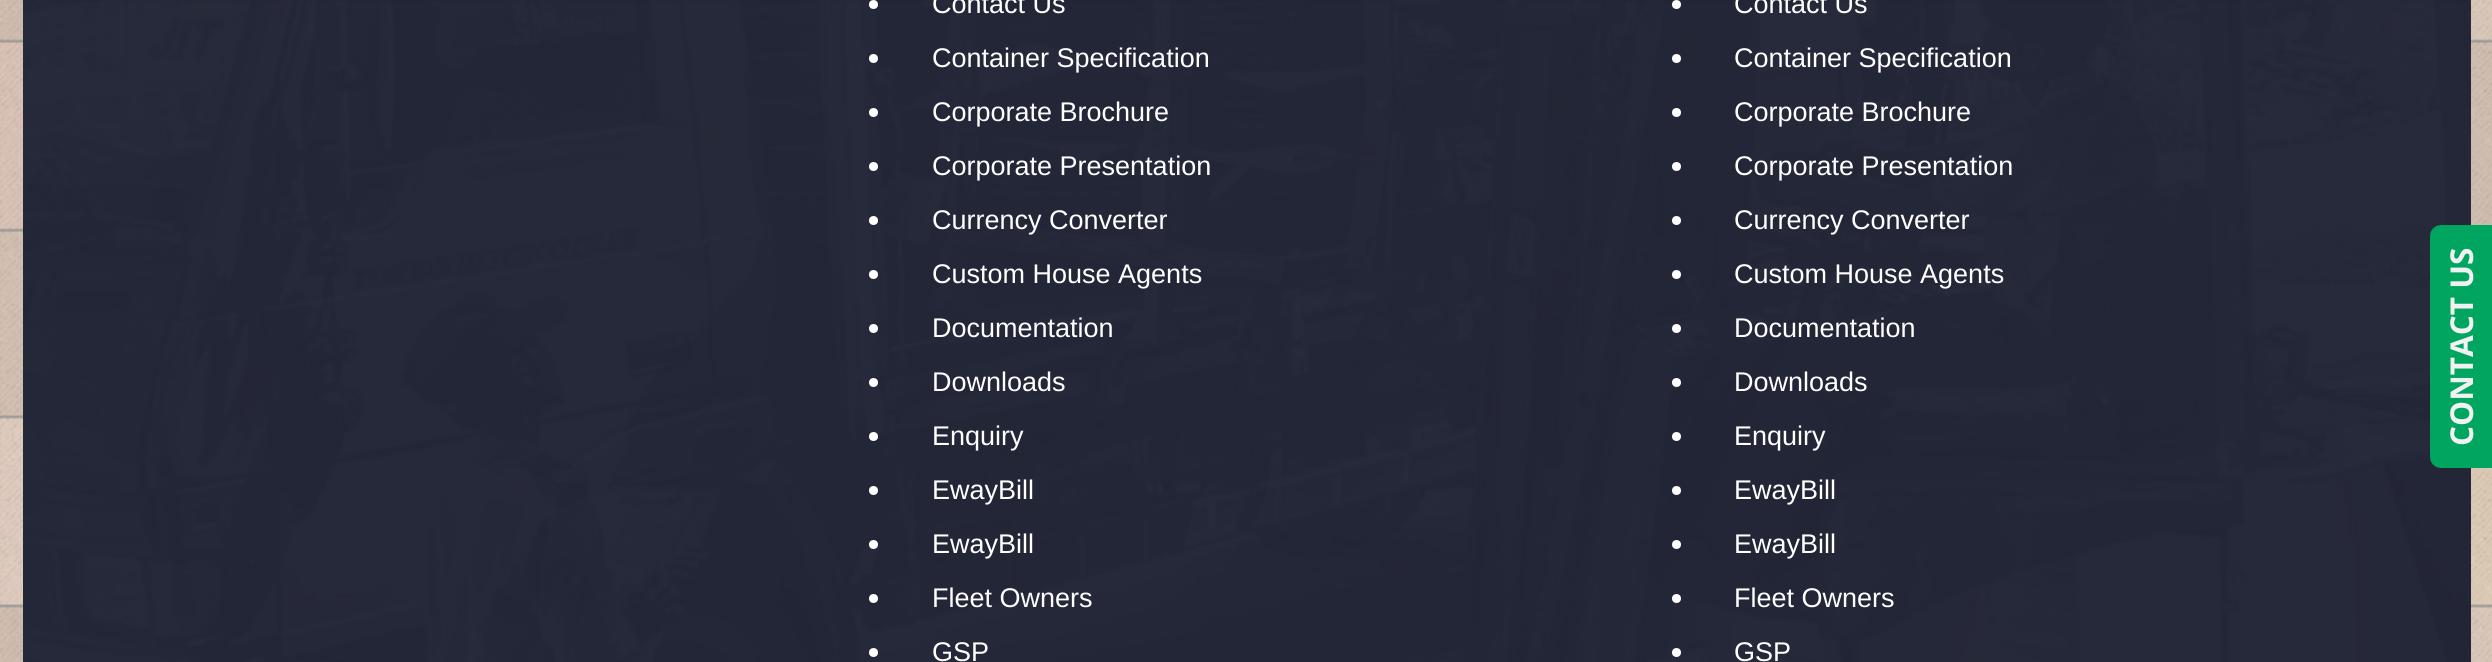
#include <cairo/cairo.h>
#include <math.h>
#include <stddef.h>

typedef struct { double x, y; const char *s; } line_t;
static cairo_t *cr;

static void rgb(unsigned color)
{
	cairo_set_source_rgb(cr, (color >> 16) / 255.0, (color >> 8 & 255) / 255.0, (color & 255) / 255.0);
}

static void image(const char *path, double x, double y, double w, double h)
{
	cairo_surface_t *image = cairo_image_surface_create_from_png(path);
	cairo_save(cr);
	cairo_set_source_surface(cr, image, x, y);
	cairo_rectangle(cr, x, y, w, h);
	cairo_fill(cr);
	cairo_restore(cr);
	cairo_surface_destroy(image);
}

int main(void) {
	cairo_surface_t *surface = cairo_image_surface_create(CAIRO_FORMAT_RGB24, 2492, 662);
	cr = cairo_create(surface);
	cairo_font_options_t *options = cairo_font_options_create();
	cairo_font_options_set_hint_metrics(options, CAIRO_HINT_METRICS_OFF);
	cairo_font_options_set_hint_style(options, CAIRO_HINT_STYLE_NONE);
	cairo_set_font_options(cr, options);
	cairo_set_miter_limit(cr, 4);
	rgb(0xffffff);
	cairo_paint(cr);
	image("img/1.png", 0, 0, 2492, 662);
	image("img/2.png", 23, 0, 2448, 662);
	rgb(0xffffff);
	cairo_arc(cr, 873.5, 4.5, 4.5, 0, 2 * M_PI);
	cairo_fill(cr);
	cairo_arc(cr, 873.5, 58.5, 4.5, 0, 2 * M_PI);
	cairo_fill(cr);
	cairo_arc(cr, 873.5, 112.5, 4.5, 0, 2 * M_PI);
	cairo_fill(cr);
	cairo_arc(cr, 873.5, 166.5, 4.5, 0, 2 * M_PI);
	cairo_fill(cr);
	cairo_arc(cr, 873.5, 220.5, 4.5, 0, 2 * M_PI);
	cairo_fill(cr);
	cairo_arc(cr, 873.5, 274.5, 4.5, 0, 2 * M_PI);
	cairo_fill(cr);
	cairo_arc(cr, 873.5, 328.5, 4.5, 0, 2 * M_PI);
	cairo_fill(cr);
	cairo_arc(cr, 873.5, 382.5, 4.5, 0, 2 * M_PI);
	cairo_fill(cr);
	cairo_arc(cr, 873.5, 436.5, 4.5, 0, 2 * M_PI);
	cairo_fill(cr);
	cairo_arc(cr, 873.5, 490.5, 4.5, 0, 2 * M_PI);
	cairo_fill(cr);
	cairo_arc(cr, 873.5, 544.5, 4.5, 0, 2 * M_PI);
	cairo_fill(cr);
	cairo_arc(cr, 873.5, 598.5, 4.5, 0, 2 * M_PI);
	cairo_fill(cr);
	cairo_arc(cr, 873.5, 652.5, 4.5, 0, 2 * M_PI);
	cairo_fill(cr);
	cairo_arc(cr, 1676.5, 4.5, 4.5, 0, 2 * M_PI);
	cairo_fill(cr);
	cairo_arc(cr, 1676.5, 58.5, 4.5, 0, 2 * M_PI);
	cairo_fill(cr);
	cairo_arc(cr, 1676.5, 112.5, 4.5, 0, 2 * M_PI);
	cairo_fill(cr);
	cairo_arc(cr, 1676.5, 166.5, 4.5, 0, 2 * M_PI);
	cairo_fill(cr);
	cairo_arc(cr, 1676.5, 220.5, 4.5, 0, 2 * M_PI);
	cairo_fill(cr);
	cairo_arc(cr, 1676.5, 274.5, 4.5, 0, 2 * M_PI);
	cairo_fill(cr);
	cairo_arc(cr, 1676.5, 328.5, 4.5, 0, 2 * M_PI);
	cairo_fill(cr);
	cairo_arc(cr, 1676.5, 382.5, 4.5, 0, 2 * M_PI);
	cairo_fill(cr);
	cairo_arc(cr, 1676.5, 436.5, 4.5, 0, 2 * M_PI);
	cairo_fill(cr);
	cairo_arc(cr, 1676.5, 490.5, 4.5, 0, 2 * M_PI);
	cairo_fill(cr);
	cairo_arc(cr, 1676.5, 544.5, 4.5, 0, 2 * M_PI);
	cairo_fill(cr);
	cairo_arc(cr, 1676.5, 598.5, 4.5, 0, 2 * M_PI);
	cairo_fill(cr);
	cairo_arc(cr, 1676.5, 652.5, 4.5, 0, 2 * M_PI);
	cairo_fill(cr);
	rgb(0x00a560);
	cairo_new_path(cr);
	cairo_move_to(cr, 2430, 457);
	cairo_line_to(cr, 2430, 236);
	cairo_curve_to(cr, 2430, 230, 2435, 225, 2441, 225);
	cairo_line_to(cr, 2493, 225);
	cairo_line_to(cr, 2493, 468);
	cairo_line_to(cr, 2441, 468);
	cairo_curve_to(cr, 2435, 468, 2430, 463, 2430, 457);
	cairo_close_path(cr);
	cairo_fill(cr);
	cairo_select_font_face(cr, "Liberation Sans", CAIRO_FONT_SLANT_NORMAL, CAIRO_FONT_WEIGHT_NORMAL);
	cairo_set_font_size(cr, 27);
	rgb(0xffffff);
	{
		static const line_t items[] = {
			{932, 13, "Contact Us"},
			{932, 67, "Container Specification"},
			{932, 121, "Corporate Brochure"},
			{932, 175, "Corporate Presentation"},
			{932, 229, "Currency Converter"},
			{932, 283, "Custom House Agents"},
			{932, 337, "Documentation"},
			{932, 391, "Downloads"},
			{932, 445, "Enquiry"},
			{932, 499, "EwayBill"},
			{932, 553, "EwayBill"},
			{932, 607, "Fleet Owners"},
			{932, 661, "GSP"},
			{1734, 13, "Contact Us"},
			{1734, 67, "Container Specification"},
			{1734, 121, "Corporate Brochure"},
			{1734, 175, "Corporate Presentation"},
			{1734, 229, "Currency Converter"},
			{1734, 283, "Custom House Agents"},
			{1734, 337, "Documentation"},
			{1734, 391, "Downloads"},
			{1734, 445, "Enquiry"},
			{1734, 499, "EwayBill"},
			{1734, 553, "EwayBill"},
			{1734, 607, "Fleet Owners"},
			{1734, 661, "GSP"},
		};
		for (size_t i = 0; i < sizeof items / sizeof *items; i++) {
			cairo_move_to(cr, items[i].x, items[i].y);
			cairo_show_text(cr, items[i].s);
		}
	}
	cairo_select_font_face(cr, "Open Sans", CAIRO_FONT_SLANT_NORMAL, CAIRO_FONT_WEIGHT_BOLD);
	cairo_set_font_size(cr, 31.5);
	rgb(0xf1f1f1);
	cairo_save(cr);
	cairo_translate(cr, 2473, 446);
	cairo_rotate(cr, -90 * M_PI / 180);
	cairo_move_to(cr, 0, 0);
	cairo_show_text(cr, "CONTACT US");
	cairo_restore(cr);
	cairo_surface_write_to_png(surface, "page.png");
	cairo_font_options_destroy(options);
	cairo_destroy(cr);
	cairo_surface_destroy(surface);
	return 0;
}
